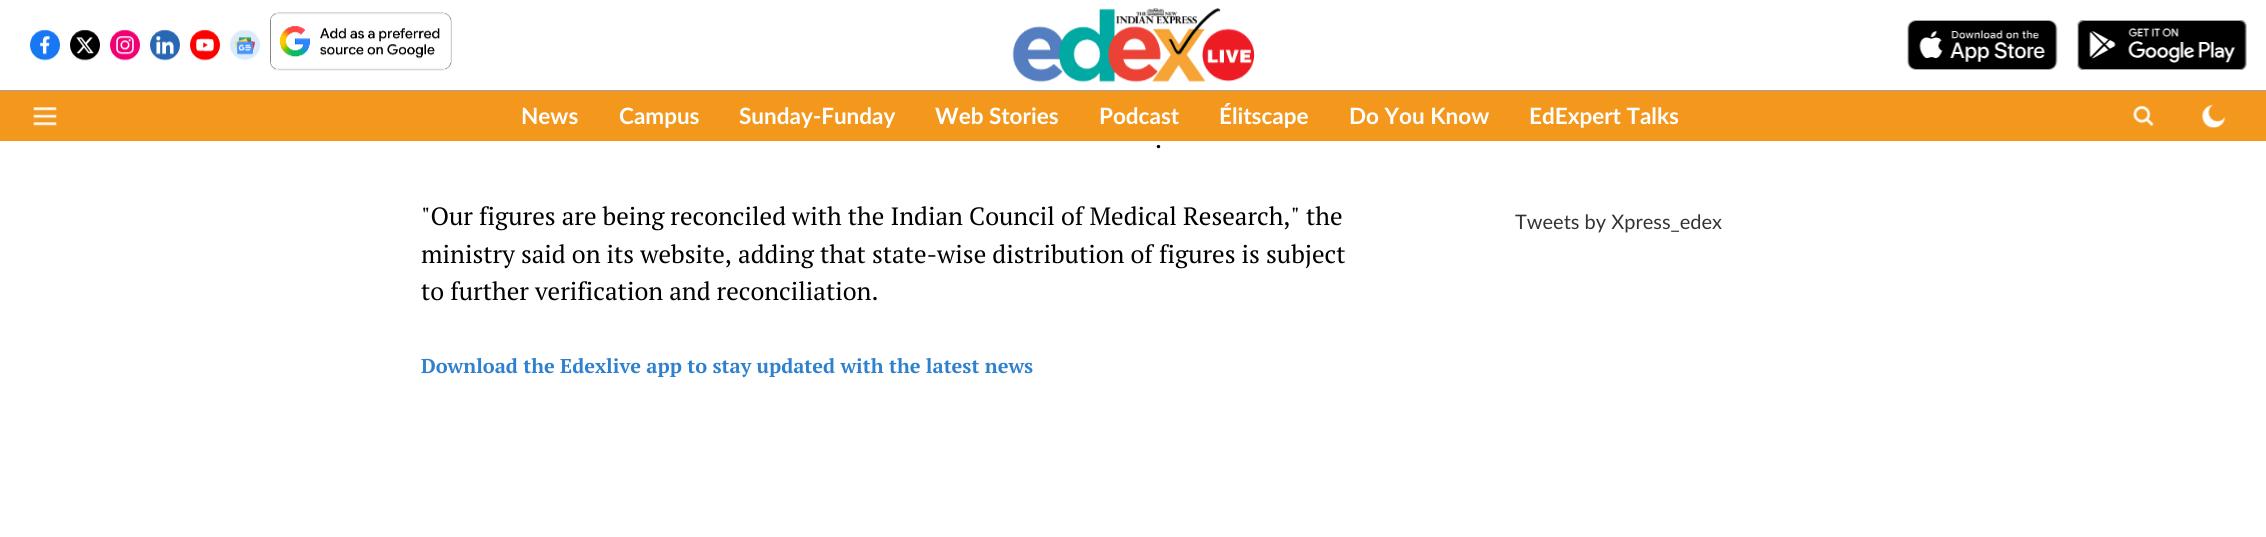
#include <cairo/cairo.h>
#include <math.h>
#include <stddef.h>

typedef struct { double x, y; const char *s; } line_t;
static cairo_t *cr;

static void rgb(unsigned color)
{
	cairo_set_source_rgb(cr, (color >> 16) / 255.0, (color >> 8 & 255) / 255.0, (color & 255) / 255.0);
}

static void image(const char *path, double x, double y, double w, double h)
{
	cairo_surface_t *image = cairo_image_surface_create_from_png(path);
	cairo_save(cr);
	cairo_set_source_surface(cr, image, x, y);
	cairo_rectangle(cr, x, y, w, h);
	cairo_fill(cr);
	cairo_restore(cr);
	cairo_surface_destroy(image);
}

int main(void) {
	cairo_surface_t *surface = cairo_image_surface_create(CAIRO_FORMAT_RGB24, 2266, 537);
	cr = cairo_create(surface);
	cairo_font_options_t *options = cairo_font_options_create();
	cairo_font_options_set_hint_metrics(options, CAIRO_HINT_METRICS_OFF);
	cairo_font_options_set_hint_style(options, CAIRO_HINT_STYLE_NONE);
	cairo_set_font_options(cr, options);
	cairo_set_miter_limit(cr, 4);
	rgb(0xffffff);
	cairo_paint(cr);
	rgb(0xa4a4a4);
	cairo_rectangle(cr, 0, 90, 2266, 1);
	cairo_fill(cr);
	image("img/1.png", 30, 29, 30, 32);
	image("img/2.png", 70, 29, 30, 32);
	image("img/3.png", 110, 29, 30, 32);
	image("img/4.png", 150, 29, 30, 32);
	image("img/5.png", 190, 29, 30, 32);
	image("img/6.png", 230, 30, 30, 31);
	image("img/7.png", 270, 12, 182, 59);
	image("img/8.png", 1012, 8, 243, 75);
	image("img/9.png", 1907, 20, 151, 50);
	image("img/10.png", 2077, 20, 170, 50);
	rgb(0xf4981d);
	cairo_rectangle(cr, 0, 91, 2266, 50);
	cairo_fill(cr);
	image("img/11.png", 33, 107, 24, 19);
	image("img/12.png", 2133, 106, 21, 21);
	image("img/13.png", 2202, 104, 24, 25);
	cairo_select_font_face(cr, "Lato", CAIRO_FONT_SLANT_NORMAL, CAIRO_FONT_WEIGHT_BOLD);
	cairo_set_font_size(cr, 22.5);
	rgb(0xffffff);
	{
		static const line_t items[] = {
			{521, 124, "News"},
			{619, 124, "Campus"},
			{739, 124, "Sunday-Funday"},
			{935, 124, "Web Stories"},
			{1099, 124, "Podcast"},
			{1219, 124, "Élitscape"},
			{1349, 124, "Do You Know"},
			{1529, 124, "EdExpert Talks"},
		};
		for (size_t i = 0; i < sizeof items / sizeof *items; i++) {
			cairo_move_to(cr, items[i].x, items[i].y);
			cairo_show_text(cr, items[i].s);
		}
	}
	cairo_select_font_face(cr, "PT Serif", CAIRO_FONT_SLANT_NORMAL, CAIRO_FONT_WEIGHT_NORMAL);
	cairo_set_font_size(cr, 25);
	rgb(0x000000);
	{
		static const line_t items[] = {
			{1155, 148, "."},
			{421, 225, "\"Our figures are being reconciled with the Indian Council of Medical Research,\" the"},
			{421, 263, "ministry said on its website, adding that state-wise distribution of figures is subject"},
			{421, 300, "to further verification and reconciliation."},
		};
		for (size_t i = 0; i < sizeof items / sizeof *items; i++) {
			cairo_move_to(cr, items[i].x, items[i].y);
			cairo_show_text(cr, items[i].s);
		}
	}
	cairo_select_font_face(cr, "PT Serif", CAIRO_FONT_SLANT_NORMAL, CAIRO_FONT_WEIGHT_BOLD);
	cairo_set_font_size(cr, 20);
	rgb(0x2f81cd);
	cairo_move_to(cr, 421, 373);
	cairo_show_text(cr, "Download the Edexlive app to stay updated with the latest news");
	cairo_select_font_face(cr, "Lato", CAIRO_FONT_SLANT_NORMAL, CAIRO_FONT_WEIGHT_NORMAL);
	rgb(0x333333);
	cairo_move_to(cr, 1515, 229);
	cairo_show_text(cr, "Tweets by Xpress_edex");
	cairo_surface_write_to_png(surface, "page.png");
	cairo_font_options_destroy(options);
	cairo_destroy(cr);
	cairo_surface_destroy(surface);
	return 0;
}
